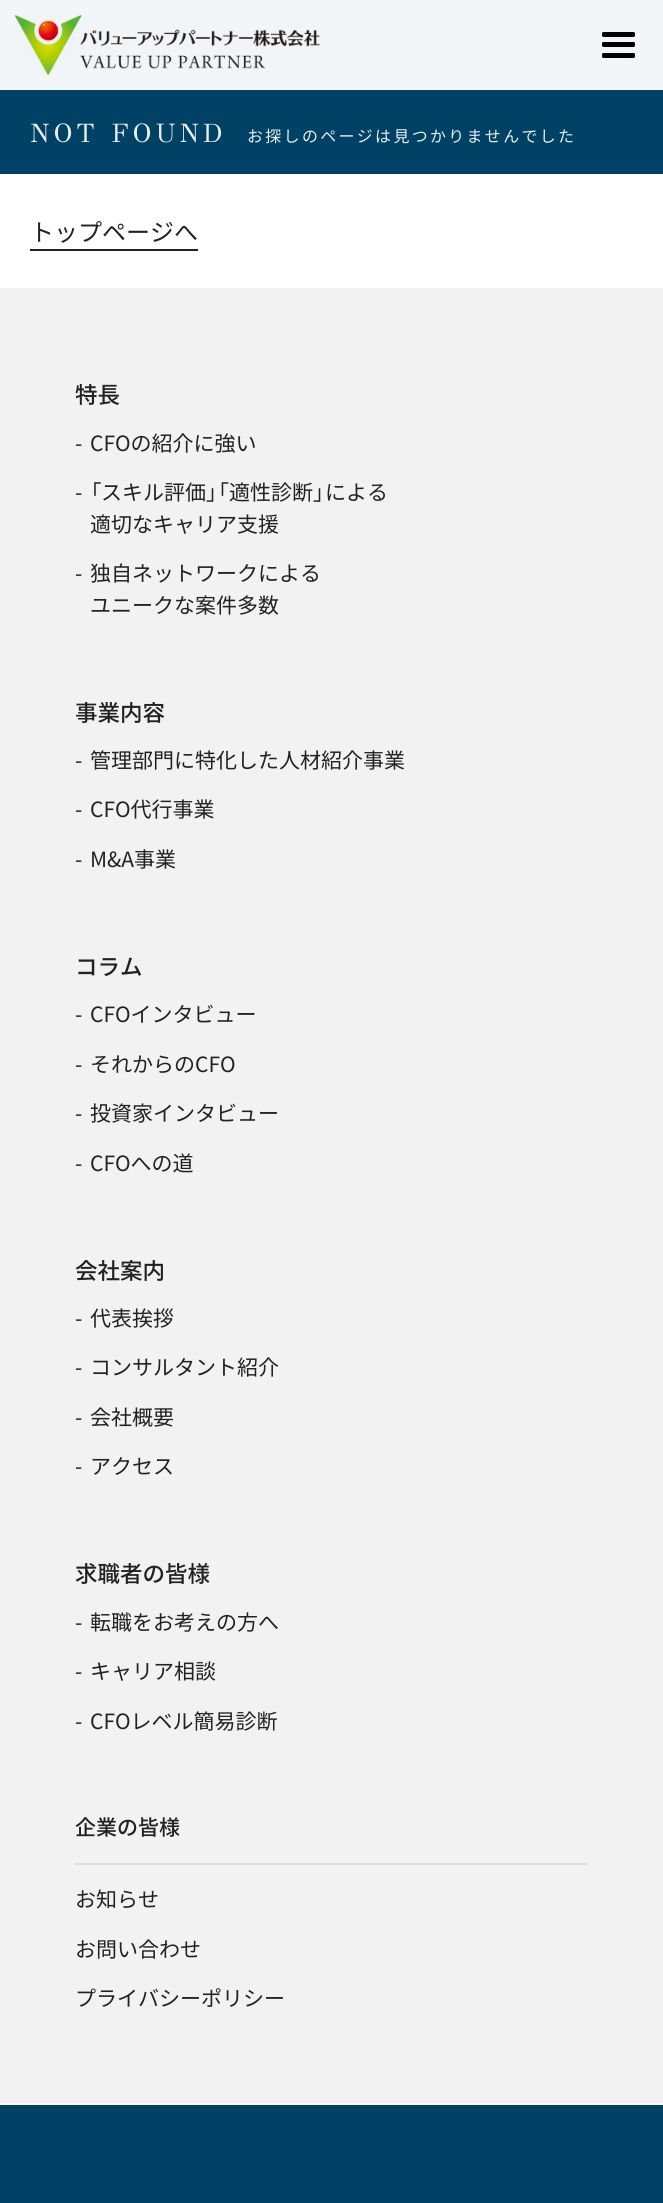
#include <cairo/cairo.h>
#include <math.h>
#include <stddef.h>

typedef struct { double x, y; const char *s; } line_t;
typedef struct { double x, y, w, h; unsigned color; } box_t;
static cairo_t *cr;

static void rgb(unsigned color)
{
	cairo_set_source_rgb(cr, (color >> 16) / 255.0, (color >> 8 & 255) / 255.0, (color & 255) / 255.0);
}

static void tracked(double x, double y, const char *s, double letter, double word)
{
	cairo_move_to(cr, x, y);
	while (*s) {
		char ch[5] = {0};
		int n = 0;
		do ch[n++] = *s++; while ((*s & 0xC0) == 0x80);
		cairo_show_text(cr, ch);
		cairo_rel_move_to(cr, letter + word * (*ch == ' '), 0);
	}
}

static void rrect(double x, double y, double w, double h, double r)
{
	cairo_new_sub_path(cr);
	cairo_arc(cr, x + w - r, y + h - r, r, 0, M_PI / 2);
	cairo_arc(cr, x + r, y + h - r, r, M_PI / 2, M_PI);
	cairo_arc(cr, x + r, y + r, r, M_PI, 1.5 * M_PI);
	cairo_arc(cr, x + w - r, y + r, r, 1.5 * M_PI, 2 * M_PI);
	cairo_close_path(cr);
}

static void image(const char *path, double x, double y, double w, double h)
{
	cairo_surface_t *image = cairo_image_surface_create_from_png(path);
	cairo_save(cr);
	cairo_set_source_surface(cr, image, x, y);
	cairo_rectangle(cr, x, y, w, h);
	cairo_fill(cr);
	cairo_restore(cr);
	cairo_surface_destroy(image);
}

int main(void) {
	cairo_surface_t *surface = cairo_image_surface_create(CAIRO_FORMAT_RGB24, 663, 2203);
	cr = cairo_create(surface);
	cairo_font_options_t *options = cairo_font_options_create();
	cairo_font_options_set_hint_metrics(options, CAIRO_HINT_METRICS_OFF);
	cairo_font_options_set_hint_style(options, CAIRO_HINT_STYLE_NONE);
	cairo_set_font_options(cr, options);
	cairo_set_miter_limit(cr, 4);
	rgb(0xffffff);
	cairo_paint(cr);
	rgb(0xf2f6f9);
	cairo_rectangle(cr, 0, 0, 663, 90);
	cairo_fill(cr);
	image("img/1.png", 15, 15, 305, 60);
	rgb(0x000000);
	rrect(602, 32, 33, 5, 1.5);
	cairo_fill(cr);
	rrect(602, 42, 33, 5, 1.5);
	cairo_fill(cr);
	rrect(602, 53, 33, 5, 1.5);
	cairo_fill(cr);
	{
		static const box_t items[] = {
			{0, 90, 663, 84, 0x004265},
			{30, 249, 168, 2, 0x222222},
			{0, 288, 663, 1815, 0xf2f2f2},
			{75, 1863, 513, 2, 0xdedede},
			{0, 2105, 663, 98, 0x004265},
		};
		for (size_t i = 0; i < sizeof items / sizeof *items; i++) {
			rgb(items[i].color);
			cairo_rectangle(cr, items[i].x, items[i].y, items[i].w, items[i].h);
			cairo_fill(cr);
		}
	}
	cairo_select_font_face(cr, "GFS Didot", CAIRO_FONT_SLANT_NORMAL, CAIRO_FONT_WEIGHT_NORMAL);
	cairo_set_font_size(cr, 26.5);
	rgb(0xeaeeee);
	tracked(30, 142, "NOT FOUND", 4, 0);
	cairo_select_font_face(cr, "Noto Sans JP", CAIRO_FONT_SLANT_NORMAL, CAIRO_FONT_WEIGHT_NORMAL);
	cairo_set_font_size(cr, 15.9);
	tracked(247, 142, "お探しのページは見つかりませんでした", 2.4, 0);
	cairo_set_font_size(cr, 24);
	rgb(0x222222);
	cairo_move_to(cr, 30, 241);
	cairo_show_text(cr, "トップページへ");
	cairo_select_font_face(cr, "Noto Sans JP Medium", CAIRO_FONT_SLANT_NORMAL, CAIRO_FONT_WEIGHT_NORMAL);
	cairo_set_font_size(cr, 22.5);
	cairo_move_to(cr, 75, 403);
	cairo_show_text(cr, "特長");
	cairo_select_font_face(cr, "Noto Sans JP", CAIRO_FONT_SLANT_NORMAL, CAIRO_FONT_WEIGHT_NORMAL);
	cairo_set_font_size(cr, 21);
	{
		static const line_t items[] = {
			{75, 451, "-"},
			{90, 451, "CFOの紹介に強い"},
			{75, 500, "-"},
		};
		for (size_t i = 0; i < sizeof items / sizeof *items; i++) {
			cairo_move_to(cr, items[i].x, items[i].y);
			cairo_show_text(cr, items[i].s);
		}
	}
	cairo_select_font_face(cr, "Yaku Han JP", CAIRO_FONT_SLANT_NORMAL, CAIRO_FONT_WEIGHT_NORMAL);
	cairo_move_to(cr, 90, 500);
	cairo_show_text(cr, "「");
	cairo_select_font_face(cr, "Noto Sans JP", CAIRO_FONT_SLANT_NORMAL, CAIRO_FONT_WEIGHT_NORMAL);
	cairo_move_to(cr, 101, 500);
	cairo_show_text(cr, "スキル評価");
	cairo_select_font_face(cr, "Yaku Han JP", CAIRO_FONT_SLANT_NORMAL, CAIRO_FONT_WEIGHT_NORMAL);
	cairo_move_to(cr, 206, 500);
	cairo_show_text(cr, "」「");
	cairo_select_font_face(cr, "Noto Sans JP", CAIRO_FONT_SLANT_NORMAL, CAIRO_FONT_WEIGHT_NORMAL);
	cairo_move_to(cr, 229, 500);
	cairo_show_text(cr, "適性診断");
	cairo_select_font_face(cr, "Yaku Han JP", CAIRO_FONT_SLANT_NORMAL, CAIRO_FONT_WEIGHT_NORMAL);
	cairo_move_to(cr, 313, 500);
	cairo_show_text(cr, "」");
	cairo_select_font_face(cr, "Noto Sans JP", CAIRO_FONT_SLANT_NORMAL, CAIRO_FONT_WEIGHT_NORMAL);
	{
		static const line_t items[] = {
			{325, 500, "による"},
			{90, 532, "適切なキャリア支援"},
			{75, 581, "-"},
			{90, 581, "独自ネットワークによる"},
			{90, 613, "ユニークな案件多数"},
		};
		for (size_t i = 0; i < sizeof items / sizeof *items; i++) {
			cairo_move_to(cr, items[i].x, items[i].y);
			cairo_show_text(cr, items[i].s);
		}
	}
	cairo_select_font_face(cr, "Noto Sans JP Medium", CAIRO_FONT_SLANT_NORMAL, CAIRO_FONT_WEIGHT_NORMAL);
	cairo_set_font_size(cr, 22.5);
	cairo_move_to(cr, 75, 721);
	cairo_show_text(cr, "事業内容");
	cairo_select_font_face(cr, "Noto Sans JP", CAIRO_FONT_SLANT_NORMAL, CAIRO_FONT_WEIGHT_NORMAL);
	cairo_set_font_size(cr, 21);
	{
		static const line_t items[] = {
			{75, 768, "-"},
			{90, 768, "管理部門に特化した人材紹介事業"},
			{75, 817, "-"},
			{90, 817, "CFO代行事業"},
			{75, 867, "-"},
			{90, 867, "M&A事業"},
		};
		for (size_t i = 0; i < sizeof items / sizeof *items; i++) {
			cairo_move_to(cr, items[i].x, items[i].y);
			cairo_show_text(cr, items[i].s);
		}
	}
	cairo_select_font_face(cr, "Noto Sans JP Medium", CAIRO_FONT_SLANT_NORMAL, CAIRO_FONT_WEIGHT_NORMAL);
	cairo_set_font_size(cr, 22.5);
	cairo_move_to(cr, 75, 975);
	cairo_show_text(cr, "コラム");
	cairo_select_font_face(cr, "Noto Sans JP", CAIRO_FONT_SLANT_NORMAL, CAIRO_FONT_WEIGHT_NORMAL);
	cairo_set_font_size(cr, 21);
	{
		static const line_t items[] = {
			{75, 1022, "-"},
			{90, 1022, "CFOインタビュー"},
			{75, 1072, "-"},
			{90, 1072, "それからのCFO"},
			{75, 1121, "-"},
			{90, 1121, "投資家インタビュー"},
			{75, 1171, "-"},
			{90, 1171, "CFOへの道"},
		};
		for (size_t i = 0; i < sizeof items / sizeof *items; i++) {
			cairo_move_to(cr, items[i].x, items[i].y);
			cairo_show_text(cr, items[i].s);
		}
	}
	cairo_select_font_face(cr, "Noto Sans JP Medium", CAIRO_FONT_SLANT_NORMAL, CAIRO_FONT_WEIGHT_NORMAL);
	cairo_set_font_size(cr, 22.5);
	cairo_move_to(cr, 75, 1279);
	cairo_show_text(cr, "会社案内");
	cairo_select_font_face(cr, "Noto Sans JP", CAIRO_FONT_SLANT_NORMAL, CAIRO_FONT_WEIGHT_NORMAL);
	cairo_set_font_size(cr, 21);
	{
		static const line_t items[] = {
			{75, 1326, "-"},
			{90, 1326, "代表挨拶"},
			{75, 1375, "-"},
			{90, 1375, "コンサルタント紹介"},
			{75, 1425, "-"},
			{90, 1425, "会社概要"},
			{75, 1474, "-"},
			{90, 1474, "アクセス"},
		};
		for (size_t i = 0; i < sizeof items / sizeof *items; i++) {
			cairo_move_to(cr, items[i].x, items[i].y);
			cairo_show_text(cr, items[i].s);
		}
	}
	cairo_select_font_face(cr, "Noto Sans JP Medium", CAIRO_FONT_SLANT_NORMAL, CAIRO_FONT_WEIGHT_NORMAL);
	cairo_set_font_size(cr, 22.5);
	cairo_move_to(cr, 75, 1582);
	cairo_show_text(cr, "求職者の皆様");
	cairo_select_font_face(cr, "Noto Sans JP", CAIRO_FONT_SLANT_NORMAL, CAIRO_FONT_WEIGHT_NORMAL);
	cairo_set_font_size(cr, 21);
	{
		static const line_t items[] = {
			{75, 1630, "-"},
			{90, 1630, "転職をお考えの方へ"},
			{75, 1679, "-"},
			{90, 1679, "キャリア相談"},
			{75, 1729, "-"},
			{90, 1729, "CFOレベル簡易診断"},
		};
		for (size_t i = 0; i < sizeof items / sizeof *items; i++) {
			cairo_move_to(cr, items[i].x, items[i].y);
			cairo_show_text(cr, items[i].s);
		}
	}
	cairo_select_font_face(cr, "Noto Sans JP Medium", CAIRO_FONT_SLANT_NORMAL, CAIRO_FONT_WEIGHT_NORMAL);
	cairo_move_to(cr, 75, 1835);
	cairo_show_text(cr, "企業の皆様");
	cairo_select_font_face(cr, "Noto Sans JP", CAIRO_FONT_SLANT_NORMAL, CAIRO_FONT_WEIGHT_NORMAL);
	{
		static const line_t items[] = {
			{75, 1907, "お知らせ"},
			{75, 1957, "お問い合わせ"},
			{75, 2006, "プライバシーポリシー"},
		};
		for (size_t i = 0; i < sizeof items / sizeof *items; i++) {
			cairo_move_to(cr, items[i].x, items[i].y);
			cairo_show_text(cr, items[i].s);
		}
	}
	cairo_surface_write_to_png(surface, "page.png");
	cairo_font_options_destroy(options);
	cairo_destroy(cr);
	cairo_surface_destroy(surface);
	return 0;
}
